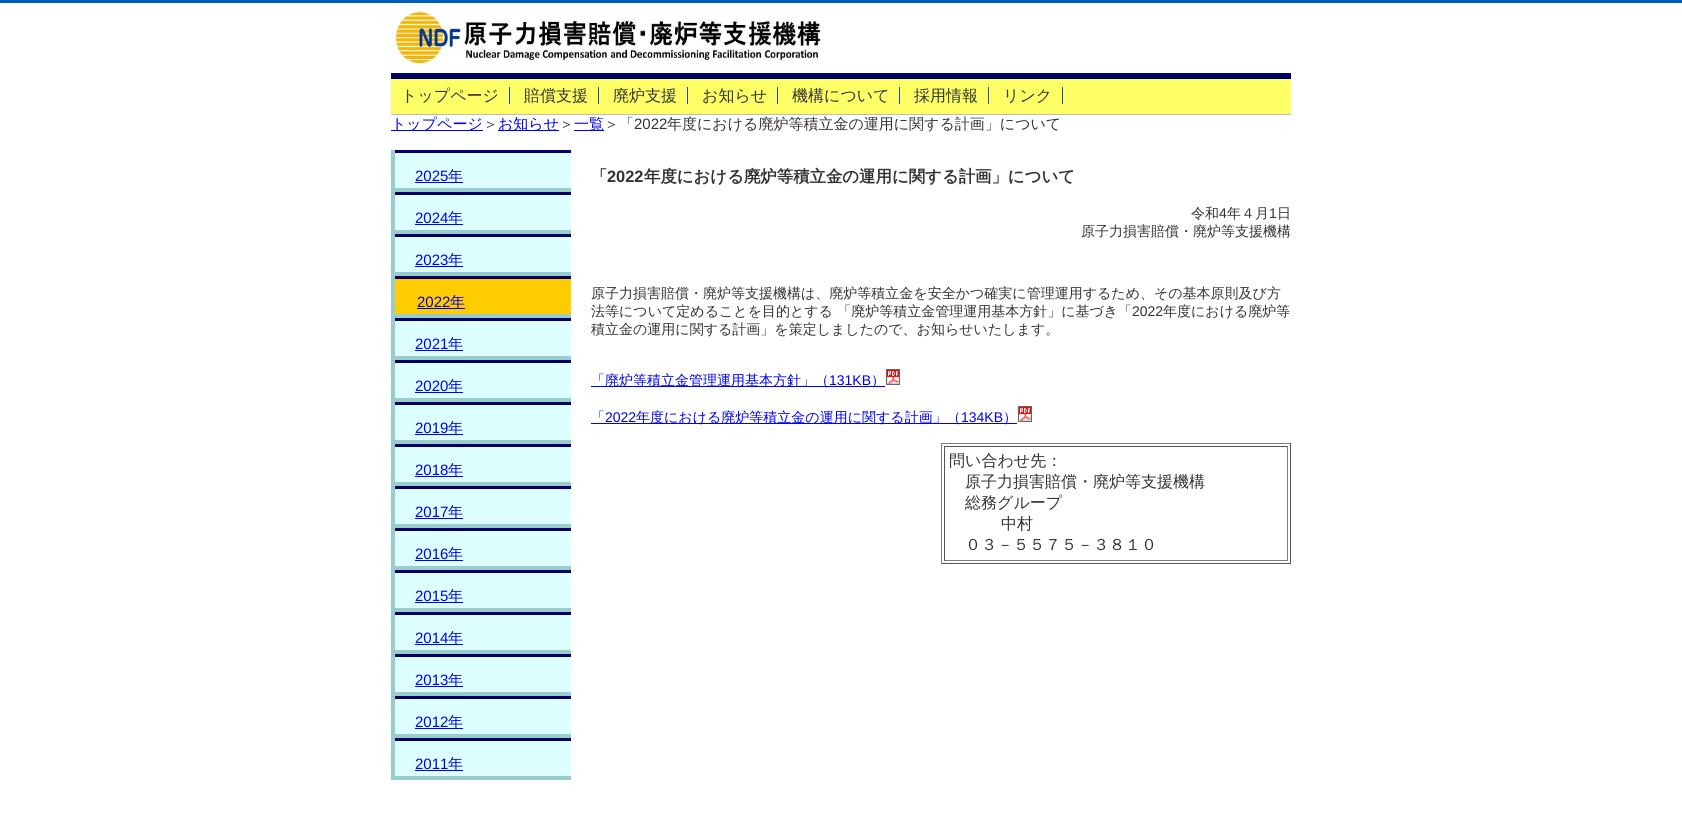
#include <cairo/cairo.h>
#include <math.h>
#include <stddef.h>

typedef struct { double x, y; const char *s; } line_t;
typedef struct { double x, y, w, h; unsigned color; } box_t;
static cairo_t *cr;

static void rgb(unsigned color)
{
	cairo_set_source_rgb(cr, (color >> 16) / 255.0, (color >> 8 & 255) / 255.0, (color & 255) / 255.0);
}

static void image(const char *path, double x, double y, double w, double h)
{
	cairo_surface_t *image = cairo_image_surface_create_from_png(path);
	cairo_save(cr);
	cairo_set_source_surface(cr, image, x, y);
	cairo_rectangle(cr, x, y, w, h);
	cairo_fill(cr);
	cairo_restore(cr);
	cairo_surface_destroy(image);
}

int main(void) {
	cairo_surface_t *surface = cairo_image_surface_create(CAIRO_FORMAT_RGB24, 1682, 829);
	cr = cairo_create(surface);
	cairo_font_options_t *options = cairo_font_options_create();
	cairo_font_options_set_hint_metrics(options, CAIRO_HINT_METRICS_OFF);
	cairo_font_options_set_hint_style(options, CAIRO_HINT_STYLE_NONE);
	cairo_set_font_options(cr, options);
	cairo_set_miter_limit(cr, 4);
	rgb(0xffffff);
	cairo_paint(cr);
	rgb(0x005ebb);
	cairo_rectangle(cr, 0, 0, 1682, 3);
	cairo_fill(cr);
	image("img/1.png", 396, 8, 425, 57);
	{
		static const box_t items[] = {
			{391, 79, 900, 35, 0xffff66},
			{391, 73, 900, 6, 0x000066},
			{391, 114, 900, 1, 0xbbbbbb},
			{509, 87, 1, 17, 0x1e50a2},
			{598, 87, 1, 17, 0x1e50a2},
			{687, 87, 1, 17, 0x1e50a2},
			{777, 87, 1, 17, 0x1e50a2},
			{899, 87, 1, 17, 0x1e50a2},
			{988, 87, 1, 17, 0x1e50a2},
			{1062, 87, 1, 17, 0x1e50a2},
			{391, 130, 92, 1, 0x0000ee},
			{498, 130, 61, 1, 0x0000ee},
			{574, 130, 30, 1, 0x0000ee},
			{391, 150, 180, 630, 0x99cccc},
			{395, 153, 176, 35, 0xddffff},
			{395, 150, 176, 3, 0x000066},
			{415, 182, 48, 1, 0x0000ee},
			{395, 195, 176, 35, 0xddffff},
			{395, 192, 176, 3, 0x000066},
			{415, 224, 48, 1, 0x0000ee},
			{395, 237, 176, 35, 0xddffff},
			{395, 234, 176, 3, 0x000066},
			{415, 266, 48, 1, 0x0000ee},
			{395, 279, 176, 35, 0xffcc00},
			{395, 276, 176, 3, 0x000066},
			{417, 308, 48, 1, 0x0000ee},
			{395, 321, 176, 35, 0xddffff},
			{395, 318, 176, 3, 0x000066},
			{415, 350, 48, 1, 0x0000ee},
			{395, 363, 176, 35, 0xddffff},
			{395, 360, 176, 3, 0x000066},
			{415, 392, 48, 1, 0x0000ee},
			{395, 405, 176, 35, 0xddffff},
			{395, 402, 176, 3, 0x000066},
			{415, 434, 48, 1, 0x0000ee},
			{395, 447, 176, 35, 0xddffff},
			{395, 444, 176, 3, 0x000066},
			{415, 476, 48, 1, 0x0000ee},
			{395, 489, 176, 35, 0xddffff},
			{395, 486, 176, 3, 0x000066},
			{415, 518, 48, 1, 0x0000ee},
			{395, 531, 176, 35, 0xddffff},
			{395, 528, 176, 3, 0x000066},
			{415, 560, 48, 1, 0x0000ee},
			{395, 573, 176, 35, 0xddffff},
			{395, 570, 176, 3, 0x000066},
			{415, 602, 48, 1, 0x0000ee},
			{395, 615, 176, 35, 0xddffff},
			{395, 612, 176, 3, 0x000066},
			{415, 644, 48, 1, 0x0000ee},
			{395, 657, 176, 35, 0xddffff},
			{395, 654, 176, 3, 0x000066},
			{415, 686, 48, 1, 0x0000ee},
			{395, 699, 176, 35, 0xddffff},
			{395, 696, 176, 3, 0x000066},
			{415, 728, 48, 1, 0x0000ee},
			{395, 741, 176, 35, 0xddffff},
			{395, 738, 176, 3, 0x000066},
			{415, 770, 48, 1, 0x0000ee},
			{591, 386, 294, 1, 0x0000ee},
		};
		for (size_t i = 0; i < sizeof items / sizeof *items; i++) {
			rgb(items[i].color);
			cairo_rectangle(cr, items[i].x, items[i].y, items[i].w, items[i].h);
			cairo_fill(cr);
		}
	}
	image("img/2.png", 886, 369, 14, 16);
	cairo_rectangle(cr, 591, 423, 426, 1);
	cairo_fill(cr);
	image("img/2.png", 1018, 406, 14, 16);
	{
		static const box_t items[] = {
			{941, 443, 350, 1, 0x808080},
			{1290, 443, 1, 121, 0x555555},
			{941, 563, 350, 1, 0x555555},
			{941, 443, 1, 121, 0x808080},
			{944, 446, 344, 1, 0x555555},
			{1287, 446, 1, 115, 0x808080},
			{944, 560, 344, 1, 0x808080},
			{944, 446, 1, 115, 0x555555},
		};
		for (size_t i = 0; i < sizeof items / sizeof *items; i++) {
			rgb(items[i].color);
			cairo_rectangle(cr, items[i].x, items[i].y, items[i].w, items[i].h);
			cairo_fill(cr);
		}
	}
	cairo_select_font_face(cr, "WenQuanYi Zen Hei Medium", CAIRO_FONT_SLANT_NORMAL, CAIRO_FONT_WEIGHT_NORMAL);
	cairo_set_font_size(cr, 16);
	rgb(0x333333);
	{
		static const line_t items[] = {
			{401, 101, "トップページ"},
			{524, 101, "賠償支援"},
			{613, 101, "廃炉支援"},
			{702, 101, "お知らせ"},
			{792, 101, "機構について"},
			{914, 101, "採用情報"},
			{1003, 101, "リンク"},
		};
		for (size_t i = 0; i < sizeof items / sizeof *items; i++) {
			cairo_move_to(cr, items[i].x, items[i].y);
			cairo_show_text(cr, items[i].s);
		}
	}
	cairo_set_font_size(cr, 15);
	rgb(0x0000ee);
	cairo_move_to(cr, 391, 129);
	cairo_show_text(cr, "トップページ");
	rgb(0x333333);
	cairo_move_to(cr, 483, 129);
	cairo_show_text(cr, "＞");
	rgb(0x0000ee);
	cairo_move_to(cr, 498, 129);
	cairo_show_text(cr, "お知らせ");
	rgb(0x333333);
	cairo_move_to(cr, 559, 129);
	cairo_show_text(cr, "＞");
	rgb(0x0000ee);
	cairo_move_to(cr, 574, 129);
	cairo_show_text(cr, "一覧");
	rgb(0x333333);
	cairo_move_to(cr, 604, 129);
	cairo_show_text(cr, "＞「");
	cairo_select_font_face(cr, "Liberation Sans", CAIRO_FONT_SLANT_NORMAL, CAIRO_FONT_WEIGHT_NORMAL);
	cairo_move_to(cr, 634, 129);
	cairo_show_text(cr, "2022");
	cairo_select_font_face(cr, "WenQuanYi Zen Hei Medium", CAIRO_FONT_SLANT_NORMAL, CAIRO_FONT_WEIGHT_NORMAL);
	cairo_move_to(cr, 667, 129);
	cairo_show_text(cr, "年度における廃炉等積立金の運用に関する計画」について");
	cairo_select_font_face(cr, "Liberation Sans", CAIRO_FONT_SLANT_NORMAL, CAIRO_FONT_WEIGHT_NORMAL);
	rgb(0x0000ee);
	cairo_move_to(cr, 415, 181);
	cairo_show_text(cr, "2025");
	cairo_select_font_face(cr, "WenQuanYi Zen Hei Medium", CAIRO_FONT_SLANT_NORMAL, CAIRO_FONT_WEIGHT_NORMAL);
	cairo_move_to(cr, 448, 181);
	cairo_show_text(cr, "年");
	cairo_select_font_face(cr, "Liberation Sans", CAIRO_FONT_SLANT_NORMAL, CAIRO_FONT_WEIGHT_NORMAL);
	cairo_move_to(cr, 415, 223);
	cairo_show_text(cr, "2024");
	cairo_select_font_face(cr, "WenQuanYi Zen Hei Medium", CAIRO_FONT_SLANT_NORMAL, CAIRO_FONT_WEIGHT_NORMAL);
	cairo_move_to(cr, 448, 223);
	cairo_show_text(cr, "年");
	cairo_select_font_face(cr, "Liberation Sans", CAIRO_FONT_SLANT_NORMAL, CAIRO_FONT_WEIGHT_NORMAL);
	cairo_move_to(cr, 415, 265);
	cairo_show_text(cr, "2023");
	cairo_select_font_face(cr, "WenQuanYi Zen Hei Medium", CAIRO_FONT_SLANT_NORMAL, CAIRO_FONT_WEIGHT_NORMAL);
	cairo_move_to(cr, 448, 265);
	cairo_show_text(cr, "年");
	cairo_select_font_face(cr, "Liberation Sans", CAIRO_FONT_SLANT_NORMAL, CAIRO_FONT_WEIGHT_NORMAL);
	cairo_move_to(cr, 417, 307);
	cairo_show_text(cr, "2022");
	cairo_select_font_face(cr, "WenQuanYi Zen Hei Medium", CAIRO_FONT_SLANT_NORMAL, CAIRO_FONT_WEIGHT_NORMAL);
	cairo_move_to(cr, 450, 307);
	cairo_show_text(cr, "年");
	cairo_select_font_face(cr, "Liberation Sans", CAIRO_FONT_SLANT_NORMAL, CAIRO_FONT_WEIGHT_NORMAL);
	cairo_move_to(cr, 415, 349);
	cairo_show_text(cr, "2021");
	cairo_select_font_face(cr, "WenQuanYi Zen Hei Medium", CAIRO_FONT_SLANT_NORMAL, CAIRO_FONT_WEIGHT_NORMAL);
	cairo_move_to(cr, 448, 349);
	cairo_show_text(cr, "年");
	cairo_select_font_face(cr, "Liberation Sans", CAIRO_FONT_SLANT_NORMAL, CAIRO_FONT_WEIGHT_NORMAL);
	cairo_move_to(cr, 415, 391);
	cairo_show_text(cr, "2020");
	cairo_select_font_face(cr, "WenQuanYi Zen Hei Medium", CAIRO_FONT_SLANT_NORMAL, CAIRO_FONT_WEIGHT_NORMAL);
	cairo_move_to(cr, 448, 391);
	cairo_show_text(cr, "年");
	cairo_select_font_face(cr, "Liberation Sans", CAIRO_FONT_SLANT_NORMAL, CAIRO_FONT_WEIGHT_NORMAL);
	cairo_move_to(cr, 415, 433);
	cairo_show_text(cr, "2019");
	cairo_select_font_face(cr, "WenQuanYi Zen Hei Medium", CAIRO_FONT_SLANT_NORMAL, CAIRO_FONT_WEIGHT_NORMAL);
	cairo_move_to(cr, 448, 433);
	cairo_show_text(cr, "年");
	cairo_select_font_face(cr, "Liberation Sans", CAIRO_FONT_SLANT_NORMAL, CAIRO_FONT_WEIGHT_NORMAL);
	cairo_move_to(cr, 415, 475);
	cairo_show_text(cr, "2018");
	cairo_select_font_face(cr, "WenQuanYi Zen Hei Medium", CAIRO_FONT_SLANT_NORMAL, CAIRO_FONT_WEIGHT_NORMAL);
	cairo_move_to(cr, 448, 475);
	cairo_show_text(cr, "年");
	cairo_select_font_face(cr, "Liberation Sans", CAIRO_FONT_SLANT_NORMAL, CAIRO_FONT_WEIGHT_NORMAL);
	cairo_move_to(cr, 415, 517);
	cairo_show_text(cr, "2017");
	cairo_select_font_face(cr, "WenQuanYi Zen Hei Medium", CAIRO_FONT_SLANT_NORMAL, CAIRO_FONT_WEIGHT_NORMAL);
	cairo_move_to(cr, 448, 517);
	cairo_show_text(cr, "年");
	cairo_select_font_face(cr, "Liberation Sans", CAIRO_FONT_SLANT_NORMAL, CAIRO_FONT_WEIGHT_NORMAL);
	cairo_move_to(cr, 415, 559);
	cairo_show_text(cr, "2016");
	cairo_select_font_face(cr, "WenQuanYi Zen Hei Medium", CAIRO_FONT_SLANT_NORMAL, CAIRO_FONT_WEIGHT_NORMAL);
	cairo_move_to(cr, 448, 559);
	cairo_show_text(cr, "年");
	cairo_select_font_face(cr, "Liberation Sans", CAIRO_FONT_SLANT_NORMAL, CAIRO_FONT_WEIGHT_NORMAL);
	cairo_move_to(cr, 415, 601);
	cairo_show_text(cr, "2015");
	cairo_select_font_face(cr, "WenQuanYi Zen Hei Medium", CAIRO_FONT_SLANT_NORMAL, CAIRO_FONT_WEIGHT_NORMAL);
	cairo_move_to(cr, 448, 601);
	cairo_show_text(cr, "年");
	cairo_select_font_face(cr, "Liberation Sans", CAIRO_FONT_SLANT_NORMAL, CAIRO_FONT_WEIGHT_NORMAL);
	cairo_move_to(cr, 415, 643);
	cairo_show_text(cr, "2014");
	cairo_select_font_face(cr, "WenQuanYi Zen Hei Medium", CAIRO_FONT_SLANT_NORMAL, CAIRO_FONT_WEIGHT_NORMAL);
	cairo_move_to(cr, 448, 643);
	cairo_show_text(cr, "年");
	cairo_select_font_face(cr, "Liberation Sans", CAIRO_FONT_SLANT_NORMAL, CAIRO_FONT_WEIGHT_NORMAL);
	cairo_move_to(cr, 415, 685);
	cairo_show_text(cr, "2013");
	cairo_select_font_face(cr, "WenQuanYi Zen Hei Medium", CAIRO_FONT_SLANT_NORMAL, CAIRO_FONT_WEIGHT_NORMAL);
	cairo_move_to(cr, 448, 685);
	cairo_show_text(cr, "年");
	cairo_select_font_face(cr, "Liberation Sans", CAIRO_FONT_SLANT_NORMAL, CAIRO_FONT_WEIGHT_NORMAL);
	cairo_move_to(cr, 415, 727);
	cairo_show_text(cr, "2012");
	cairo_select_font_face(cr, "WenQuanYi Zen Hei Medium", CAIRO_FONT_SLANT_NORMAL, CAIRO_FONT_WEIGHT_NORMAL);
	cairo_move_to(cr, 448, 727);
	cairo_show_text(cr, "年");
	cairo_select_font_face(cr, "Liberation Sans", CAIRO_FONT_SLANT_NORMAL, CAIRO_FONT_WEIGHT_NORMAL);
	cairo_move_to(cr, 415, 769);
	cairo_show_text(cr, "2011");
	cairo_select_font_face(cr, "WenQuanYi Zen Hei Medium", CAIRO_FONT_SLANT_NORMAL, CAIRO_FONT_WEIGHT_NORMAL);
	cairo_move_to(cr, 448, 769);
	cairo_show_text(cr, "年");
	cairo_select_font_face(cr, "WenQuanYi Zen Hei", CAIRO_FONT_SLANT_NORMAL, CAIRO_FONT_WEIGHT_BOLD);
	cairo_set_font_size(cr, 16.4);
	rgb(0x333333);
	cairo_move_to(cr, 591, 182);
	cairo_show_text(cr, "「");
	cairo_select_font_face(cr, "Liberation Sans", CAIRO_FONT_SLANT_NORMAL, CAIRO_FONT_WEIGHT_BOLD);
	cairo_move_to(cr, 607, 182);
	cairo_show_text(cr, "2022");
	cairo_select_font_face(cr, "WenQuanYi Zen Hei", CAIRO_FONT_SLANT_NORMAL, CAIRO_FONT_WEIGHT_BOLD);
	cairo_move_to(cr, 644, 182);
	cairo_show_text(cr, "年度における廃炉等積立金の運用に関する計画」について");
	cairo_select_font_face(cr, "WenQuanYi Zen Hei Medium", CAIRO_FONT_SLANT_NORMAL, CAIRO_FONT_WEIGHT_NORMAL);
	cairo_set_font_size(cr, 14);
	cairo_move_to(cr, 1191, 218);
	cairo_show_text(cr, "令和");
	cairo_select_font_face(cr, "Liberation Sans", CAIRO_FONT_SLANT_NORMAL, CAIRO_FONT_WEIGHT_NORMAL);
	cairo_move_to(cr, 1219, 218);
	cairo_show_text(cr, "4");
	cairo_select_font_face(cr, "WenQuanYi Zen Hei Medium", CAIRO_FONT_SLANT_NORMAL, CAIRO_FONT_WEIGHT_NORMAL);
	cairo_move_to(cr, 1227, 218);
	cairo_show_text(cr, "年４月");
	cairo_select_font_face(cr, "Liberation Sans", CAIRO_FONT_SLANT_NORMAL, CAIRO_FONT_WEIGHT_NORMAL);
	cairo_move_to(cr, 1269, 218);
	cairo_show_text(cr, "1");
	cairo_select_font_face(cr, "WenQuanYi Zen Hei Medium", CAIRO_FONT_SLANT_NORMAL, CAIRO_FONT_WEIGHT_NORMAL);
	{
		static const line_t items[] = {
			{1277, 218, "日"},
			{1081, 236, "原子力損害賠償・廃炉等支援機構"},
			{591, 298, "原子力損害賠償・廃炉等支援機構は、廃炉等積立金を安全かつ確実に管理運用するため、その基本原則及び方"},
			{591, 316, "法等について定めることを目的とする 「廃炉等積立金管理運用基本方針」に基づき「"},
		};
		for (size_t i = 0; i < sizeof items / sizeof *items; i++) {
			cairo_move_to(cr, items[i].x, items[i].y);
			cairo_show_text(cr, items[i].s);
		}
	}
	cairo_select_font_face(cr, "Liberation Sans", CAIRO_FONT_SLANT_NORMAL, CAIRO_FONT_WEIGHT_NORMAL);
	cairo_move_to(cr, 1132, 316);
	cairo_show_text(cr, "2022");
	cairo_select_font_face(cr, "WenQuanYi Zen Hei Medium", CAIRO_FONT_SLANT_NORMAL, CAIRO_FONT_WEIGHT_NORMAL);
	cairo_move_to(cr, 1163, 316);
	cairo_show_text(cr, "年度における廃炉等");
	cairo_move_to(cr, 591, 334);
	cairo_show_text(cr, "積立金の運用に関する計画」を策定しましたので、お知らせいたします。");
	rgb(0x0000ee);
	cairo_move_to(cr, 591, 385);
	cairo_show_text(cr, "「廃炉等積立金管理運用基本方針」（");
	cairo_select_font_face(cr, "Liberation Sans", CAIRO_FONT_SLANT_NORMAL, CAIRO_FONT_WEIGHT_NORMAL);
	cairo_move_to(cr, 829, 385);
	cairo_show_text(cr, "131KB");
	cairo_select_font_face(cr, "WenQuanYi Zen Hei Medium", CAIRO_FONT_SLANT_NORMAL, CAIRO_FONT_WEIGHT_NORMAL);
	cairo_move_to(cr, 871, 385);
	cairo_show_text(cr, "）");
	cairo_move_to(cr, 591, 422);
	cairo_show_text(cr, "「");
	cairo_select_font_face(cr, "Liberation Sans", CAIRO_FONT_SLANT_NORMAL, CAIRO_FONT_WEIGHT_NORMAL);
	cairo_move_to(cr, 605, 422);
	cairo_show_text(cr, "2022");
	cairo_select_font_face(cr, "WenQuanYi Zen Hei Medium", CAIRO_FONT_SLANT_NORMAL, CAIRO_FONT_WEIGHT_NORMAL);
	cairo_move_to(cr, 636, 422);
	cairo_show_text(cr, "年度における廃炉等積立金の運用に関する計画」（");
	cairo_select_font_face(cr, "Liberation Sans", CAIRO_FONT_SLANT_NORMAL, CAIRO_FONT_WEIGHT_NORMAL);
	cairo_move_to(cr, 961, 422);
	cairo_show_text(cr, "134KB");
	cairo_select_font_face(cr, "WenQuanYi Zen Hei Medium", CAIRO_FONT_SLANT_NORMAL, CAIRO_FONT_WEIGHT_NORMAL);
	cairo_move_to(cr, 1003, 422);
	cairo_show_text(cr, "）");
	cairo_set_font_size(cr, 16);
	rgb(0x333333);
	{
		static const line_t items[] = {
			{949, 466, "問い合わせ先："},
			{965, 487, "原子力損害賠償・廃炉等支援機構"},
			{965, 508, "総務グループ"},
			{1001, 529, "中村"},
			{965, 550, "０３－５５７５－３８１０"},
		};
		for (size_t i = 0; i < sizeof items / sizeof *items; i++) {
			cairo_move_to(cr, items[i].x, items[i].y);
			cairo_show_text(cr, items[i].s);
		}
	}
	cairo_surface_write_to_png(surface, "page.png");
	cairo_font_options_destroy(options);
	cairo_destroy(cr);
	cairo_surface_destroy(surface);
	return 0;
}
